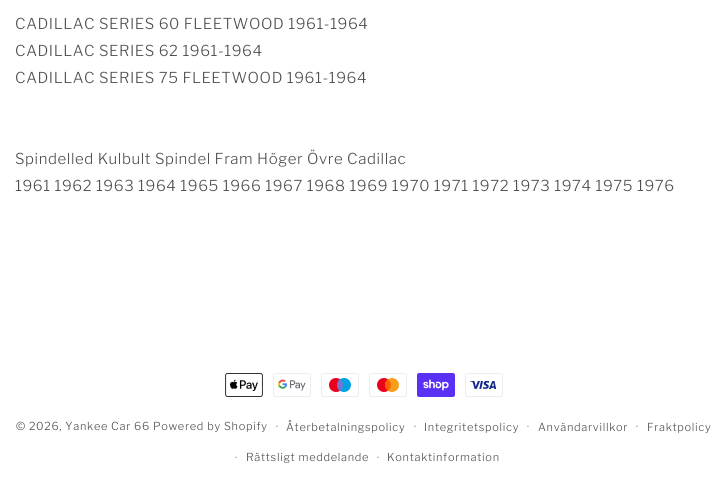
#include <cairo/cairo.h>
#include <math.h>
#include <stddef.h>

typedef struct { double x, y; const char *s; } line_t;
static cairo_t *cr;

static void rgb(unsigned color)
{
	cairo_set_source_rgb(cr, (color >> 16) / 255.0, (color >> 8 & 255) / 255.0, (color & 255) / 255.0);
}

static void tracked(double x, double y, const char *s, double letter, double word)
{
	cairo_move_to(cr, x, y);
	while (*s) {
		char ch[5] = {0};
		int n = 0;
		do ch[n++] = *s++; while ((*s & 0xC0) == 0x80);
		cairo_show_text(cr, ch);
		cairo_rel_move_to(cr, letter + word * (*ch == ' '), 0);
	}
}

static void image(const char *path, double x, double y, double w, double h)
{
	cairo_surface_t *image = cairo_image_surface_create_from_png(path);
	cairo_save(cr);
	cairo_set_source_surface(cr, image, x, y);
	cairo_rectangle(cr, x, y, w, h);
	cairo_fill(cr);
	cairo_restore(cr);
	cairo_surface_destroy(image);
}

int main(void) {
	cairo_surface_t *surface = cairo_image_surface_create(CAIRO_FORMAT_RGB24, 727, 500);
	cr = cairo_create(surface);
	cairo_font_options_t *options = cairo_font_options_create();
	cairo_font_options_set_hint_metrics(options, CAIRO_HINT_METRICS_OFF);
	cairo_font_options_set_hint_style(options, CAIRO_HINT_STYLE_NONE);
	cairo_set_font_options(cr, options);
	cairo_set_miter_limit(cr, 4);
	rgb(0xffffff);
	cairo_paint(cr);
	image("img/1.png", 225, 373, 38, 24);
	image("img/2.png", 273, 373, 38, 24);
	image("img/3.png", 321, 373, 38, 24);
	image("img/4.png", 369, 373, 38, 24);
	image("img/5.png", 417, 373, 38, 24);
	image("img/6.png", 465, 373, 38, 24);
	cairo_select_font_face(cr, "Libre Franklin Light", CAIRO_FONT_SLANT_NORMAL, CAIRO_FONT_WEIGHT_NORMAL);
	cairo_set_font_size(cr, 15);
	rgb(0x4d4d4d);
	{
		static const line_t items[] = {
			{15, 29, "CADILLAC SERIES 60 FLEETWOOD 1961-1964"},
			{15, 56, "CADILLAC SERIES 62 1961-1964"},
			{15, 83, "CADILLAC SERIES 75 FLEETWOOD 1961-1964"},
			{15, 164, "Spindelled Kulbult Spindel Fram Höger Övre Cadillac"},
			{15, 191, "1961 1962 1963 1964 1965 1966 1967 1968 1969 1970 1971 1972 1973 1974 1975 1976"},
		};
		for (size_t i = 0; i < sizeof items / sizeof *items; i++) {
			tracked(items[i].x, items[i].y, items[i].s, 0.6, 0);
		}
	}
	cairo_set_font_size(cr, 11);
	tracked(16, 430, "© 2026, Yankee Car 66 Powered by Shopify", 0.7, 0);
	cairo_set_font_size(cr, 10);
	tracked(276, 430, "·", 0.7, 0);
	cairo_set_font_size(cr, 11);
	tracked(286, 431, "Återbetalningspolicy", 0.7, 0);
	cairo_set_font_size(cr, 10);
	tracked(414, 430, "·", 0.7, 0);
	cairo_set_font_size(cr, 11);
	tracked(424, 431, "Integritetspolicy", 0.7, 0);
	cairo_set_font_size(cr, 10);
	tracked(527, 430, "·", 0.7, 0);
	cairo_set_font_size(cr, 11);
	tracked(538, 431, "Användarvillkor", 0.7, 0);
	cairo_set_font_size(cr, 10);
	tracked(636, 430, "·", 0.7, 0);
	cairo_set_font_size(cr, 11);
	tracked(647, 431, "Fraktpolicy", 0.7, 0);
	cairo_set_font_size(cr, 10);
	tracked(235, 461, "·", 0.7, 0);
	cairo_set_font_size(cr, 11);
	tracked(246, 461, "Rättsligt meddelande", 0.7, 0);
	cairo_set_font_size(cr, 10);
	tracked(377, 461, "·", 0.7, 0);
	cairo_set_font_size(cr, 11);
	tracked(387, 461, "Kontaktinformation", 0.7, 0);
	cairo_surface_write_to_png(surface, "page.png");
	cairo_font_options_destroy(options);
	cairo_destroy(cr);
	cairo_surface_destroy(surface);
	return 0;
}
